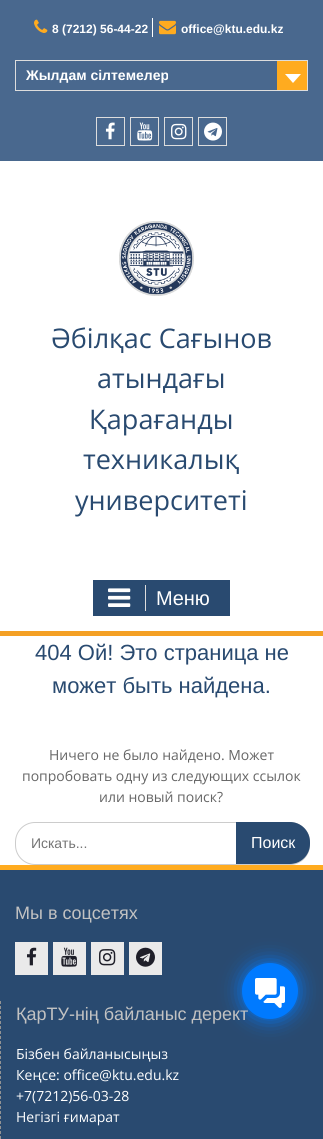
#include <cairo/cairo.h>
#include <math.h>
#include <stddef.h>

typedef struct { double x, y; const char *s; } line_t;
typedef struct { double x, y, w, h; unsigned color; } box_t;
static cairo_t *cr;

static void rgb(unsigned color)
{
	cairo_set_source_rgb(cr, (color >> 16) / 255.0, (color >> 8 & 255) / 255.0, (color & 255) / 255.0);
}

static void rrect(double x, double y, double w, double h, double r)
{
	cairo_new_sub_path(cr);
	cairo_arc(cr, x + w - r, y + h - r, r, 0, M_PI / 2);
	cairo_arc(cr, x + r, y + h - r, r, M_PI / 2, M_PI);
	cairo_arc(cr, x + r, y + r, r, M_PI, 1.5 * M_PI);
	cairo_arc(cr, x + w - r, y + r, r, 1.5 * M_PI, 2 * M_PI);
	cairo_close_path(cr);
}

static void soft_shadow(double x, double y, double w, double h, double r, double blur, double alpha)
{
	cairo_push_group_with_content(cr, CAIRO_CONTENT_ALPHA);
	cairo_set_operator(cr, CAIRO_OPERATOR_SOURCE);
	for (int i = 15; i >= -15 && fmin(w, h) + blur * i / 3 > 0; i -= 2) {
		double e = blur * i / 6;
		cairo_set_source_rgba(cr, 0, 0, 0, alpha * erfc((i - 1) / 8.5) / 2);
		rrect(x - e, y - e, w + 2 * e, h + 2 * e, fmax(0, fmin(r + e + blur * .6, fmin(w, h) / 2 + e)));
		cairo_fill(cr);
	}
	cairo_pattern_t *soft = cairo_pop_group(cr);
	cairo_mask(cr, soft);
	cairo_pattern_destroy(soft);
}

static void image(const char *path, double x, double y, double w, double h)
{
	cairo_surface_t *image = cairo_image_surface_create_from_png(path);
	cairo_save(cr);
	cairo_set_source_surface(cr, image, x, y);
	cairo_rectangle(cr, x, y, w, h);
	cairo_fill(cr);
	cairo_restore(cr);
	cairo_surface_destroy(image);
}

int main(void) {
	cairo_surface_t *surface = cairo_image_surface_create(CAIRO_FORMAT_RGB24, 323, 1139);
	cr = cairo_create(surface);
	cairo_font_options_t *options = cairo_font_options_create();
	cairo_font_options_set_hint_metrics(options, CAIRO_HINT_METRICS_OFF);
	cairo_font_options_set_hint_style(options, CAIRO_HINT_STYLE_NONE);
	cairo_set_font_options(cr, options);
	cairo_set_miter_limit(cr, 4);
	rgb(0xffffff);
	cairo_paint(cr);
	rgb(0x49688e);
	cairo_rectangle(cr, 0, 0, 323, 161);
	cairo_fill(cr);
	image("img/1.png", 34, 19, 14, 14);
	rgb(0xffffff);
	cairo_rectangle(cr, 152, 18, 1, 19);
	cairo_fill(cr);
	image("img/2.png", 159, 20, 17, 15);
	cairo_rectangle(cr, 15.5, 60.5, 292, 30);
	rgb(0xdddddd);
	cairo_set_line_width(cr, 1);
	cairo_stroke(cr);
	rgb(0xffab1f);
	cairo_rectangle(cr, 277, 61, 30, 29);
	cairo_fill(cr);
	rgb(0xffffff);
	cairo_new_path(cr);
	cairo_move_to(cr, 285, 74);
	cairo_line_to(cr, 301, 74);
	cairo_line_to(cr, 293, 83);
	cairo_close_path(cr);
	cairo_fill(cr);
	cairo_rectangle(cr, 96.5, 117.5, 28, 28);
	rgb(0xdddddd);
	cairo_stroke(cr);
	image("img/3.png", 105, 122, 10, 18);
	cairo_rectangle(cr, 130.5, 117.5, 28, 28);
	cairo_stroke(cr);
	image("img/4.png", 137, 122, 16, 19);
	cairo_rectangle(cr, 164.5, 117.5, 28, 28);
	cairo_stroke(cr);
	image("img/5.png", 171, 123, 16, 17);
	cairo_rectangle(cr, 198.5, 117.5, 28, 28);
	cairo_stroke(cr);
	image("img/6.png", 204, 122, 18, 19);
	image("img/7.png", 119, 221, 75, 75);
	{
		static const box_t items[] = {
			{0, 631, 323, 5, 0xf4a024},
			{93, 580, 137, 36, 0x294a70},
			{145, 585, 1, 26, 0xdddddd},
		};
		for (size_t i = 0; i < sizeof items / sizeof *items; i++) {
			rgb(items[i].color);
			cairo_rectangle(cr, items[i].x, items[i].y, items[i].w, items[i].h);
			cairo_fill(cr);
		}
	}
	image("img/8.png", 108, 588, 23, 19);
	rrect(15.5, 822.5, 294, 42, 19.5);
	rgb(0xcccccc);
	cairo_stroke(cr);
	rgb(0x294a70);
	cairo_new_path(cr);
	cairo_move_to(cr, 236, 822);
	cairo_line_to(cr, 290, 822);
	cairo_curve_to(cr, 301, 822, 310, 831, 310, 842);
	cairo_line_to(cr, 310, 844);
	cairo_curve_to(cr, 310, 855, 301, 864, 290, 864);
	cairo_line_to(cr, 236, 864);
	cairo_close_path(cr);
	cairo_fill(cr);
	{
		static const box_t items[] = {
			{0, 870, 323, 269, 0x294a70},
			{0, 865, 323, 5, 0xffab1f},
			{15, 942, 33, 33, 0xeaeaea},
		};
		for (size_t i = 0; i < sizeof items / sizeof *items; i++) {
			rgb(items[i].color);
			cairo_rectangle(cr, items[i].x, items[i].y, items[i].w, items[i].h);
			cairo_fill(cr);
		}
	}
	image("img/9.png", 27, 947, 10, 19);
	cairo_rectangle(cr, 53, 942, 33, 33);
	cairo_fill(cr);
	image("img/10.png", 61, 947, 16, 20);
	cairo_rectangle(cr, 91, 942, 33, 33);
	cairo_fill(cr);
	image("img/11.png", 99, 949, 17, 17);
	cairo_rectangle(cr, 129, 942, 33, 33);
	cairo_fill(cr);
	image("img/12.png", 136, 947, 19, 20);
	cairo_new_path(cr);
	cairo_move_to(cr, 0.5, 1001);
	cairo_line_to(cr, 0.5, 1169);
	rgb(0x939393);
	cairo_set_dash(cr, (double[]){3, 2}, 2, 0);
	cairo_stroke(cr);
	rgb(0x007aff);
	soft_shadow(242, 963, 56, 56, 28, 10, 1);
	cairo_select_font_face(cr, "Liberation Sans", CAIRO_FONT_SLANT_NORMAL, CAIRO_FONT_WEIGHT_BOLD);
	cairo_set_font_size(cr, 12);
	rgb(0xffffff);
	cairo_move_to(cr, 52, 33);
	cairo_show_text(cr, "8 (7212) 56-44-22");
	cairo_move_to(cr, 181, 33);
	cairo_show_text(cr, "office@ktu.edu.kz");
	cairo_set_font_size(cr, 14);
	cairo_move_to(cr, 26, 80);
	cairo_show_text(cr, "Жылдам сілтемелер");
	cairo_select_font_face(cr, "Open Sans", CAIRO_FONT_SLANT_NORMAL, CAIRO_FONT_WEIGHT_NORMAL);
	cairo_set_font_size(cr, 27);
	rgb(0x294a70);
	{
		static const line_t items[] = {
			{51, 348, "Әбілқас Сағынов"},
			{97, 388, "атындағы"},
			{89, 429, "Қарағанды"},
			{83, 469, "техникалық"},
			{75, 510, "университеті"},
		};
		for (size_t i = 0; i < sizeof items / sizeof *items; i++) {
			cairo_move_to(cr, items[i].x, items[i].y);
			cairo_show_text(cr, items[i].s);
		}
	}
	cairo_select_font_face(cr, "Liberation Sans", CAIRO_FONT_SLANT_NORMAL, CAIRO_FONT_WEIGHT_NORMAL);
	cairo_set_font_size(cr, 20);
	rgb(0xffffff);
	cairo_move_to(cr, 156, 605);
	cairo_show_text(cr, "Меню");
	cairo_set_font_size(cr, 22);
	rgb(0x294a70);
	cairo_move_to(cr, 35, 660);
	cairo_show_text(cr, "404 Ой! Это страница не");
	cairo_move_to(cr, 52, 693);
	cairo_show_text(cr, "может быть найдена.");
	cairo_select_font_face(cr, "Open Sans", CAIRO_FONT_SLANT_NORMAL, CAIRO_FONT_WEIGHT_NORMAL);
	cairo_set_font_size(cr, 14);
	rgb(0x666666);
	{
		static const line_t items[] = {
			{49, 760, "Ничего не было найдено. Может"},
			{22, 781, "попробовать одну из следующих ссылок"},
			{99, 802, "или новый поиск?"},
		};
		for (size_t i = 0; i < sizeof items / sizeof *items; i++) {
			cairo_move_to(cr, items[i].x, items[i].y);
			cairo_show_text(cr, items[i].s);
		}
	}
	cairo_select_font_face(cr, "Liberation Sans", CAIRO_FONT_SLANT_NORMAL, CAIRO_FONT_WEIGHT_NORMAL);
	rgb(0x757575);
	cairo_move_to(cr, 31, 848);
	cairo_show_text(cr, "Искать...");
	cairo_set_font_size(cr, 16);
	rgb(0xffffff);
	cairo_move_to(cr, 251, 848);
	cairo_show_text(cr, "Поиск");
	cairo_set_font_size(cr, 18);
	rgb(0xc2c2c2);
	cairo_move_to(cr, 15, 919);
	cairo_show_text(cr, "Мы в соцсетях");
	cairo_move_to(cr, 16, 1020);
	cairo_show_text(cr, "ҚарТУ-нің байланыс дерект");
	cairo_select_font_face(cr, "Open Sans", CAIRO_FONT_SLANT_NORMAL, CAIRO_FONT_WEIGHT_NORMAL);
	cairo_set_font_size(cr, 14);
	rgb(0xffffff);
	{
		static const line_t items[] = {
			{16, 1059, "Бізбен байланысыңыз"},
			{16, 1080, "Кеңсе: office@ktu.edu.kz"},
			{16, 1101, "+7(7212)56-03-28"},
			{16, 1122, "Негізгі ғимарат"},
		};
		for (size_t i = 0; i < sizeof items / sizeof *items; i++) {
			cairo_move_to(cr, items[i].x, items[i].y);
			cairo_show_text(cr, items[i].s);
		}
	}
	rgb(0x007aff);
	cairo_new_path(cr);
	cairo_arc(cr, 270, 991, 28, 0, 2 * M_PI);
	cairo_fill(cr);
	image("img/13.png", 255, 978, 30, 30);
	cairo_surface_write_to_png(surface, "page.png");
	cairo_font_options_destroy(options);
	cairo_destroy(cr);
	cairo_surface_destroy(surface);
	return 0;
}
